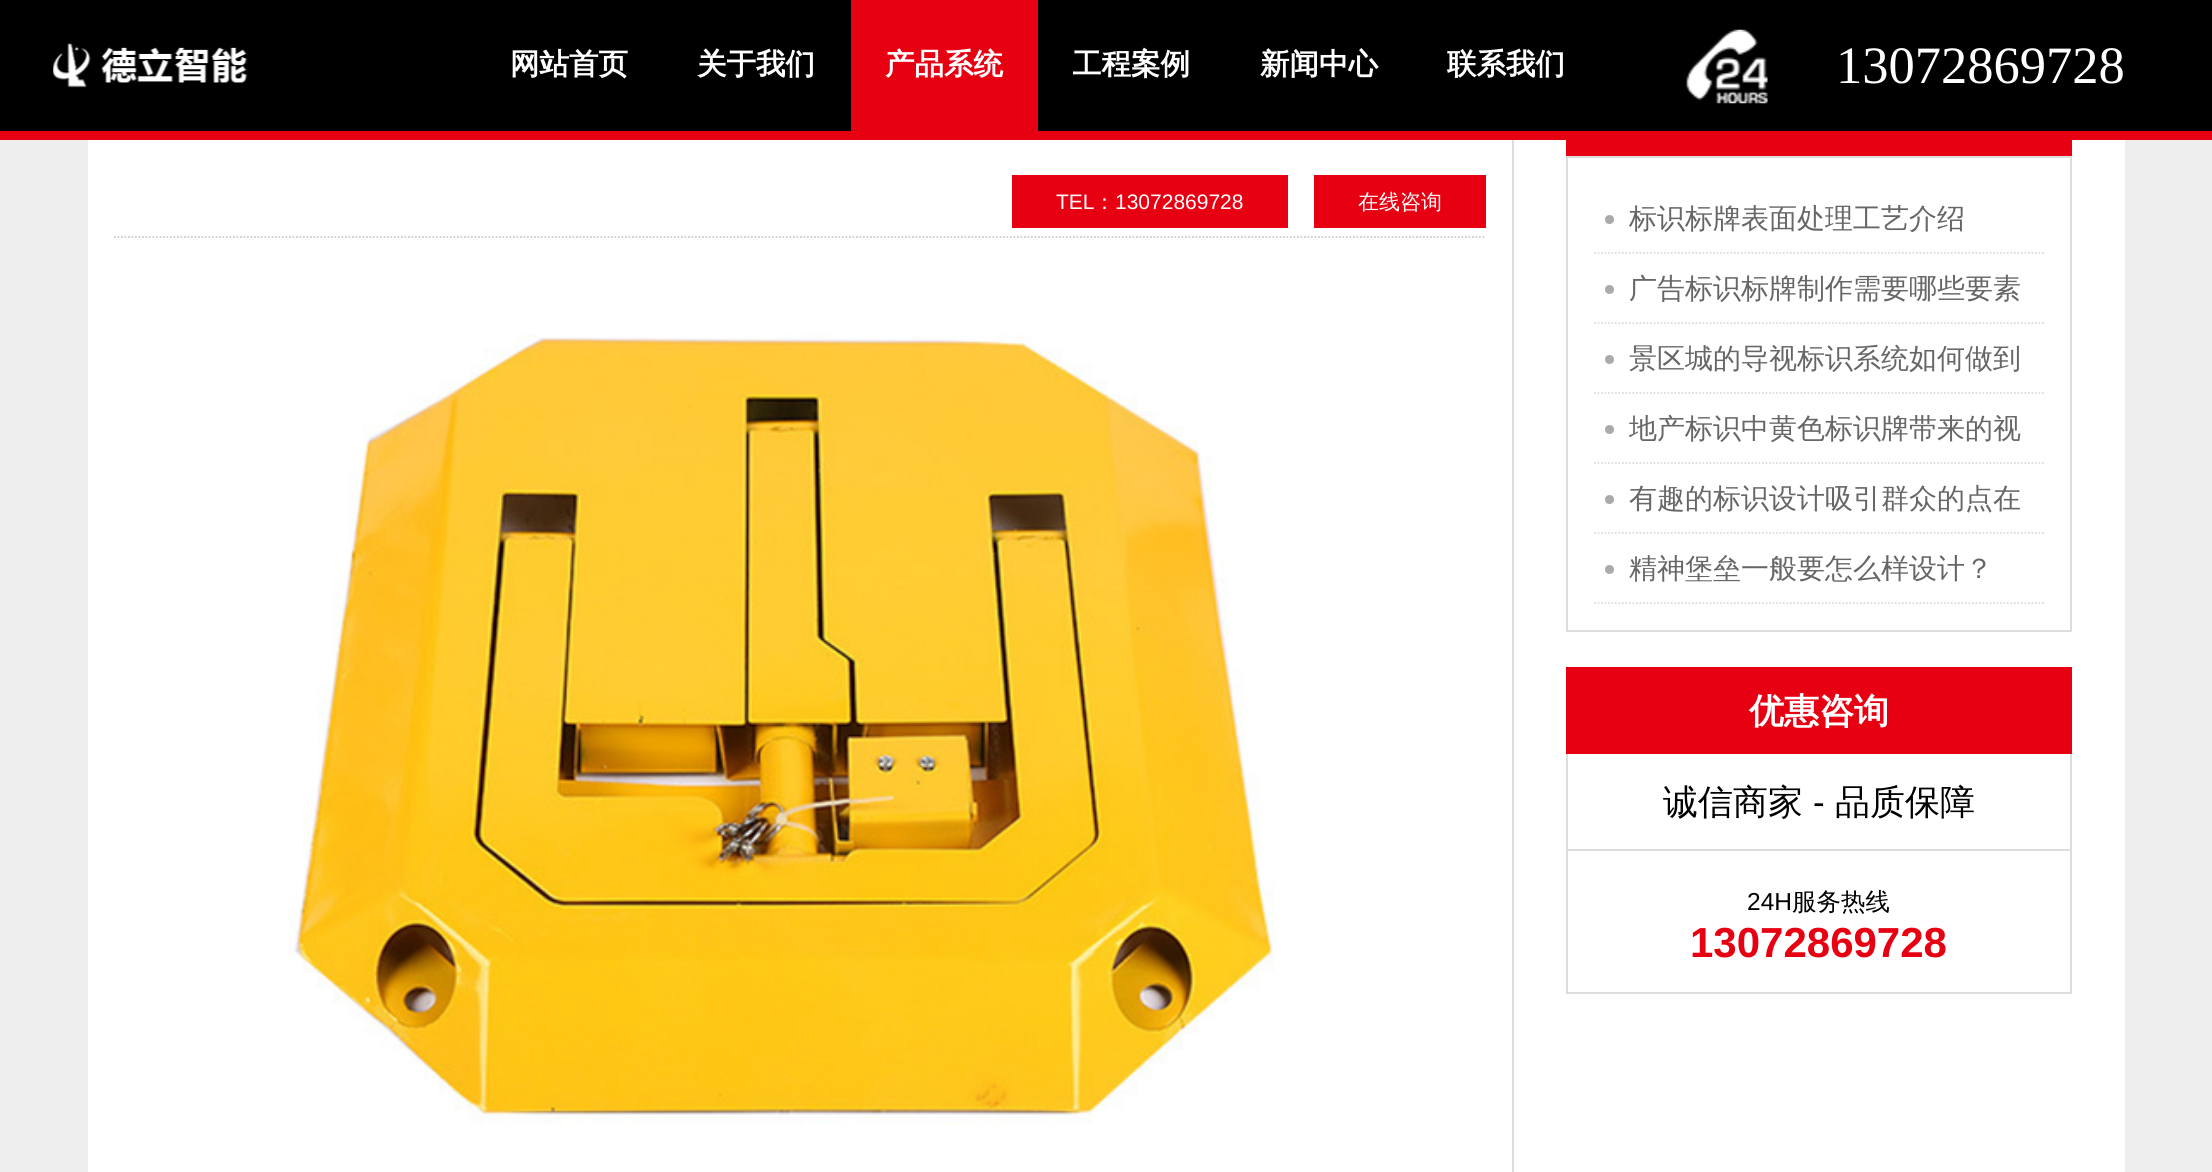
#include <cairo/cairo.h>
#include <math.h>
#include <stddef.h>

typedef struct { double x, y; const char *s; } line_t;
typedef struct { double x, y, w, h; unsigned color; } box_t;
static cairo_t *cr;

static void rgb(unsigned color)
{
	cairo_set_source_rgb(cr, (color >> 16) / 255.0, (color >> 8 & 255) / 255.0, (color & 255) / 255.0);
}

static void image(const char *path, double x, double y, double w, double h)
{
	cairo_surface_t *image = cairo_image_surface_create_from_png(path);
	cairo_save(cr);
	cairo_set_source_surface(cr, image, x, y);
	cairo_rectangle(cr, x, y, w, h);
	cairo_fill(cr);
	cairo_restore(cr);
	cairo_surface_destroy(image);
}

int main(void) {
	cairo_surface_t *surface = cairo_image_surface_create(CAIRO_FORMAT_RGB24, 2212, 1172);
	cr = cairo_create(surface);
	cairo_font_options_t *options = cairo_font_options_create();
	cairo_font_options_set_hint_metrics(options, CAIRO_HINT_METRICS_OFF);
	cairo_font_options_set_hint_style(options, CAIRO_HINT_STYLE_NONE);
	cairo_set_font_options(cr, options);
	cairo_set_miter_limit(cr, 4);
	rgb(0xeeeeee);
	cairo_paint(cr);
	rgb(0x000000);
	cairo_rectangle(cr, 0, 0, 2212, 131);
	cairo_fill(cr);
	rgb(0xe70012);
	cairo_rectangle(cr, 0, 131, 2212, 9);
	cairo_fill(cr);
	image("img/1.png", 53, 43, 195, 45);
	cairo_rectangle(cr, 851, 0, 187, 131);
	cairo_fill(cr);
	image("img/2.png", 1686, 29, 82, 75);
	rgb(0xffffff);
	cairo_rectangle(cr, 88, 140, 2037, 1032);
	cairo_fill(cr);
	rgb(0xdddddd);
	cairo_rectangle(cr, 1512, 140, 2, 1032);
	cairo_fill(cr);
	cairo_new_path(cr);
	cairo_move_to(cr, 114, 237);
	cairo_line_to(cr, 1486, 237);
	rgb(0xcccccc);
	cairo_set_line_width(cr, 1.8);
	cairo_set_dash(cr, (double[]){1.75, 1.75}, 2, 0);
	cairo_stroke(cr);
	rgb(0xe70012);
	cairo_rectangle(cr, 1012, 175, 276, 53);
	cairo_fill(cr);
	cairo_rectangle(cr, 1314, 175, 172, 53);
	cairo_fill(cr);
	image("img/3.png", 288, 334, 987, 791);
	cairo_rectangle(cr, 1566, 140, 506, 16);
	cairo_fill(cr);
	cairo_rectangle(cr, 1567, 157, 504, 474);
	rgb(0xdddddd);
	cairo_set_line_width(cr, 2);
	cairo_set_dash(cr, NULL, 0, 0);
	cairo_stroke(cr);
	cairo_new_path(cr);
	cairo_move_to(cr, 1594, 253);
	cairo_line_to(cr, 2044, 253);
	cairo_set_line_width(cr, 1.8);
	cairo_set_dash(cr, (double[]){1.75, 1.75}, 2, 0);
	cairo_stroke(cr);
	rgb(0xaaaaaa);
	cairo_arc(cr, 1609.5, 219.5, 4.5, 0, 2 * M_PI);
	cairo_fill(cr);
	cairo_new_path(cr);
	cairo_move_to(cr, 1594, 323);
	cairo_line_to(cr, 2044, 323);
	rgb(0xdddddd);
	cairo_stroke(cr);
	rgb(0xaaaaaa);
	cairo_arc(cr, 1609.5, 289.5, 4.5, 0, 2 * M_PI);
	cairo_fill(cr);
	cairo_new_path(cr);
	cairo_move_to(cr, 1594, 393);
	cairo_line_to(cr, 2044, 393);
	rgb(0xdddddd);
	cairo_stroke(cr);
	rgb(0xaaaaaa);
	cairo_arc(cr, 1609.5, 359.5, 4.5, 0, 2 * M_PI);
	cairo_fill(cr);
	cairo_new_path(cr);
	cairo_move_to(cr, 1594, 463);
	cairo_line_to(cr, 2044, 463);
	rgb(0xdddddd);
	cairo_stroke(cr);
	rgb(0xaaaaaa);
	cairo_arc(cr, 1609.5, 429.5, 4.5, 0, 2 * M_PI);
	cairo_fill(cr);
	cairo_new_path(cr);
	cairo_move_to(cr, 1594, 533);
	cairo_line_to(cr, 2044, 533);
	rgb(0xdddddd);
	cairo_stroke(cr);
	rgb(0xaaaaaa);
	cairo_arc(cr, 1609.5, 499.5, 4.5, 0, 2 * M_PI);
	cairo_fill(cr);
	cairo_new_path(cr);
	cairo_move_to(cr, 1594, 603);
	cairo_line_to(cr, 2044, 603);
	rgb(0xdddddd);
	cairo_stroke(cr);
	rgb(0xaaaaaa);
	cairo_arc(cr, 1609.5, 569.5, 4.5, 0, 2 * M_PI);
	cairo_fill(cr);
	{
		static const box_t items[] = {
			{1566, 667, 506, 87, 0xe70012},
			{2070, 754, 2, 240, 0xdddddd},
			{1566, 849, 506, 2, 0xdddddd},
			{1566, 754, 2, 97, 0xdddddd},
			{1566, 992, 506, 2, 0xdddddd},
			{1566, 851, 2, 143, 0xdddddd},
		};
		for (size_t i = 0; i < sizeof items / sizeof *items; i++) {
			rgb(items[i].color);
			cairo_rectangle(cr, items[i].x, items[i].y, items[i].w, items[i].h);
			cairo_fill(cr);
		}
	}
	cairo_select_font_face(cr, "WenQuanYi Zen Hei", CAIRO_FONT_SLANT_NORMAL, CAIRO_FONT_WEIGHT_BOLD);
	cairo_set_font_size(cr, 29.5);
	rgb(0xffffff);
	{
		static const line_t items[] = {
			{510, 74, "网站首页"},
			{697, 74, "关于我们"},
			{885, 74, "产品系统"},
		};
		for (size_t i = 0; i < sizeof items / sizeof *items; i++) {
			cairo_move_to(cr, items[i].x, items[i].y);
			cairo_show_text(cr, items[i].s);
		}
	}
	cairo_save(cr);
	cairo_rectangle(cr, 1073, 0, 117, 137);
	cairo_clip(cr);
	cairo_move_to(cr, 1072, 74);
	cairo_show_text(cr, "工程案例");
	cairo_restore(cr);
	cairo_move_to(cr, 1260, 74);
	cairo_show_text(cr, "新闻中心");
	cairo_move_to(cr, 1447, 74);
	cairo_show_text(cr, "联系我们");
	cairo_select_font_face(cr, "Liberation Serif", CAIRO_FONT_SLANT_NORMAL, CAIRO_FONT_WEIGHT_NORMAL);
	cairo_set_font_size(cr, 52.5);
	cairo_move_to(cr, 1836, 83);
	cairo_show_text(cr, "13072869728");
	cairo_select_font_face(cr, "Liberation Sans", CAIRO_FONT_SLANT_NORMAL, CAIRO_FONT_WEIGHT_NORMAL);
	cairo_set_font_size(cr, 21);
	cairo_move_to(cr, 1056, 209);
	cairo_show_text(cr, "TEL");
	cairo_select_font_face(cr, "WenQuanYi Zen Hei Medium", CAIRO_FONT_SLANT_NORMAL, CAIRO_FONT_WEIGHT_NORMAL);
	cairo_move_to(cr, 1094, 209);
	cairo_show_text(cr, "：");
	cairo_select_font_face(cr, "Liberation Sans", CAIRO_FONT_SLANT_NORMAL, CAIRO_FONT_WEIGHT_NORMAL);
	cairo_move_to(cr, 1115, 209);
	cairo_show_text(cr, "13072869728");
	cairo_select_font_face(cr, "WenQuanYi Zen Hei Medium", CAIRO_FONT_SLANT_NORMAL, CAIRO_FONT_WEIGHT_NORMAL);
	cairo_move_to(cr, 1358, 209);
	cairo_show_text(cr, "在线咨询");
	cairo_set_font_size(cr, 28);
	rgb(0x666666);
	{
		static const line_t items[] = {
			{1629, 228, "标识标牌表面处理工艺介绍"},
			{1629, 298, "广告标识标牌制作需要哪些要素"},
			{1629, 368, "景区城的导视标识系统如何做到"},
			{1629, 438, "地产标识中黄色标识牌带来的视"},
			{1629, 508, "有趣的标识设计吸引群众的点在"},
			{1629, 578, "精神堡垒一般要怎么样设计？"},
		};
		for (size_t i = 0; i < sizeof items / sizeof *items; i++) {
			cairo_move_to(cr, items[i].x, items[i].y);
			cairo_show_text(cr, items[i].s);
		}
	}
	cairo_select_font_face(cr, "WenQuanYi Zen Hei", CAIRO_FONT_SLANT_NORMAL, CAIRO_FONT_WEIGHT_BOLD);
	cairo_set_font_size(cr, 35);
	rgb(0xffffff);
	cairo_move_to(cr, 1749, 723);
	cairo_show_text(cr, "优惠咨询");
	cairo_select_font_face(cr, "WenQuanYi Zen Hei Medium", CAIRO_FONT_SLANT_NORMAL, CAIRO_FONT_WEIGHT_NORMAL);
	rgb(0x000000);
	cairo_move_to(cr, 1663, 814);
	cairo_show_text(cr, "诚信商家");
	cairo_select_font_face(cr, "Liberation Sans", CAIRO_FONT_SLANT_NORMAL, CAIRO_FONT_WEIGHT_NORMAL);
	cairo_move_to(cr, 1813, 814);
	cairo_show_text(cr, "-");
	cairo_select_font_face(cr, "WenQuanYi Zen Hei Medium", CAIRO_FONT_SLANT_NORMAL, CAIRO_FONT_WEIGHT_NORMAL);
	cairo_move_to(cr, 1835, 814);
	cairo_show_text(cr, "品质保障");
	cairo_select_font_face(cr, "Liberation Sans", CAIRO_FONT_SLANT_NORMAL, CAIRO_FONT_WEIGHT_NORMAL);
	cairo_set_font_size(cr, 24.5);
	cairo_move_to(cr, 1747, 910);
	cairo_show_text(cr, "24H");
	cairo_select_font_face(cr, "WenQuanYi Zen Hei Medium", CAIRO_FONT_SLANT_NORMAL, CAIRO_FONT_WEIGHT_NORMAL);
	cairo_move_to(cr, 1792, 910);
	cairo_show_text(cr, "服务热线");
	cairo_select_font_face(cr, "Liberation Sans", CAIRO_FONT_SLANT_NORMAL, CAIRO_FONT_WEIGHT_BOLD);
	cairo_set_font_size(cr, 42);
	rgb(0xe70012);
	cairo_move_to(cr, 1690, 957);
	cairo_show_text(cr, "13072869728");
	cairo_surface_write_to_png(surface, "page.png");
	cairo_font_options_destroy(options);
	cairo_destroy(cr);
	cairo_surface_destroy(surface);
	return 0;
}
